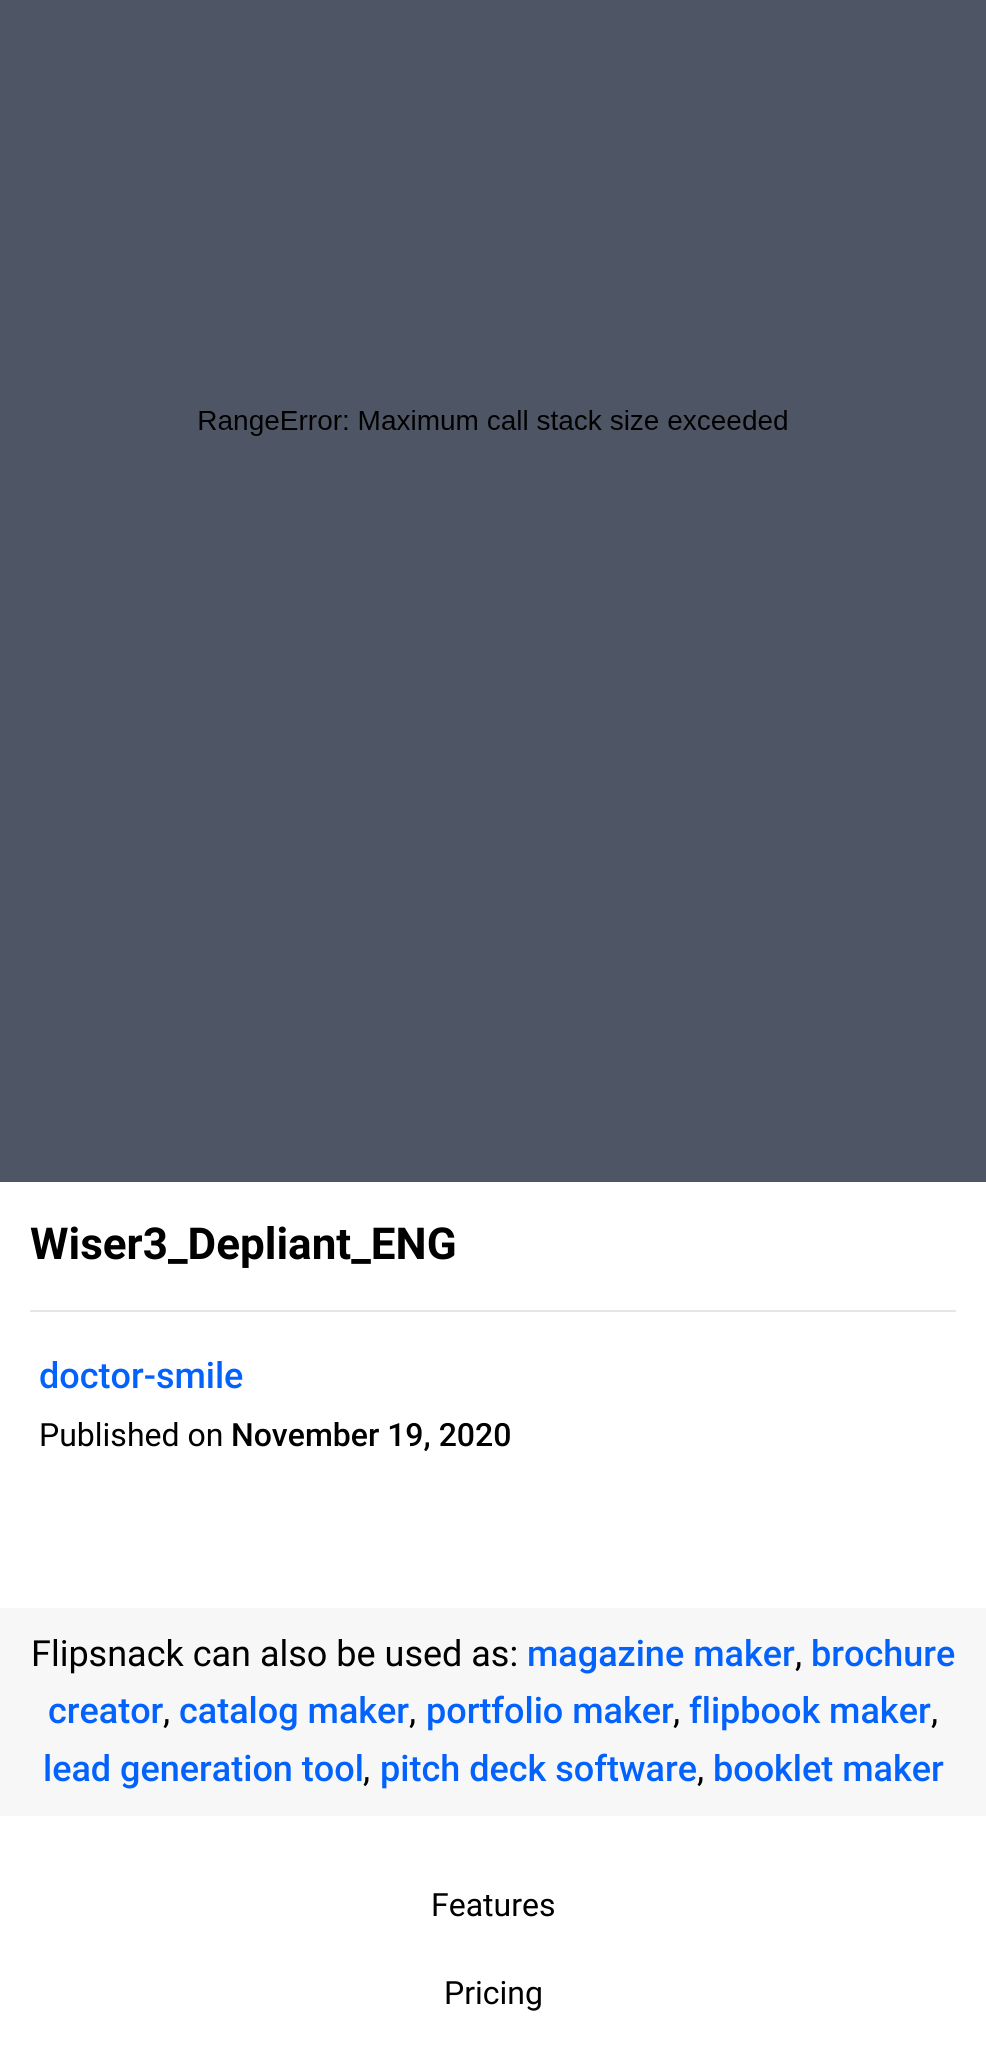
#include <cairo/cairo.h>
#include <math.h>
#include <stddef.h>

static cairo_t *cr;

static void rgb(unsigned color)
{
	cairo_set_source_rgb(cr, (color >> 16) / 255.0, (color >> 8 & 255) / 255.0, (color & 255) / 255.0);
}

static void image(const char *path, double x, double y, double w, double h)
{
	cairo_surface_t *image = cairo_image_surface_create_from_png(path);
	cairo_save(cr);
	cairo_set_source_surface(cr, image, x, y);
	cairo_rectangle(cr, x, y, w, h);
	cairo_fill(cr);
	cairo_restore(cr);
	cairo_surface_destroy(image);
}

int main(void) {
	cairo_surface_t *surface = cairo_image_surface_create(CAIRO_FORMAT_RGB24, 986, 2056);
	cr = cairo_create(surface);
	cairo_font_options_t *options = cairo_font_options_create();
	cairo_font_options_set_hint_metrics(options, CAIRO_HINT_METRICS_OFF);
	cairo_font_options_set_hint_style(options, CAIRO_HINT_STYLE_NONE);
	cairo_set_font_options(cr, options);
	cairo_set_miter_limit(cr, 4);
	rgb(0xffffff);
	cairo_paint(cr);
	rgb(0x4e5565);
	cairo_rectangle(cr, 0, 0, 986, 1182);
	cairo_fill(cr);
	image("img/1.png", 199, 410, 588, 26);
	rgb(0xe6e6e6);
	cairo_rectangle(cr, 30, 1310, 926, 2);
	cairo_fill(cr);
	rgb(0xf7f7f7);
	cairo_rectangle(cr, 0, 1608, 986, 208);
	cairo_fill(cr);
	cairo_select_font_face(cr, "Roboto", CAIRO_FONT_SLANT_NORMAL, CAIRO_FONT_WEIGHT_BOLD);
	cairo_set_font_size(cr, 44);
	rgb(0x000000);
	cairo_move_to(cr, 30, 1259);
	cairo_show_text(cr, "Wiser3_Depliant_ENG");
	cairo_select_font_face(cr, "Roboto Medium", CAIRO_FONT_SLANT_NORMAL, CAIRO_FONT_WEIGHT_NORMAL);
	cairo_set_font_size(cr, 36);
	rgb(0x0362fc);
	cairo_move_to(cr, 39, 1388);
	cairo_show_text(cr, "doctor-smile");
	cairo_select_font_face(cr, "Roboto", CAIRO_FONT_SLANT_NORMAL, CAIRO_FONT_WEIGHT_NORMAL);
	cairo_set_font_size(cr, 32);
	rgb(0x000000);
	cairo_move_to(cr, 39, 1446);
	cairo_show_text(cr, "Published on");
	cairo_select_font_face(cr, "Roboto Medium", CAIRO_FONT_SLANT_NORMAL, CAIRO_FONT_WEIGHT_NORMAL);
	cairo_move_to(cr, 231, 1446);
	cairo_show_text(cr, "November 19, 2020");
	cairo_select_font_face(cr, "Roboto", CAIRO_FONT_SLANT_NORMAL, CAIRO_FONT_WEIGHT_NORMAL);
	cairo_set_font_size(cr, 36);
	cairo_move_to(cr, 31, 1666);
	cairo_show_text(cr, "Flipsnack can also be used as:");
	cairo_select_font_face(cr, "Roboto Medium", CAIRO_FONT_SLANT_NORMAL, CAIRO_FONT_WEIGHT_NORMAL);
	rgb(0x0362fc);
	cairo_move_to(cr, 527, 1666);
	cairo_show_text(cr, "magazine maker");
	cairo_select_font_face(cr, "Roboto", CAIRO_FONT_SLANT_NORMAL, CAIRO_FONT_WEIGHT_NORMAL);
	rgb(0x000000);
	cairo_move_to(cr, 795, 1666);
	cairo_show_text(cr, ",");
	cairo_select_font_face(cr, "Roboto Medium", CAIRO_FONT_SLANT_NORMAL, CAIRO_FONT_WEIGHT_NORMAL);
	rgb(0x0362fc);
	cairo_move_to(cr, 811, 1666);
	cairo_show_text(cr, "brochure");
	cairo_move_to(cr, 48, 1723);
	cairo_show_text(cr, "creator");
	cairo_select_font_face(cr, "Roboto", CAIRO_FONT_SLANT_NORMAL, CAIRO_FONT_WEIGHT_NORMAL);
	rgb(0x000000);
	cairo_move_to(cr, 163, 1723);
	cairo_show_text(cr, ",");
	cairo_select_font_face(cr, "Roboto Medium", CAIRO_FONT_SLANT_NORMAL, CAIRO_FONT_WEIGHT_NORMAL);
	rgb(0x0362fc);
	cairo_move_to(cr, 179, 1723);
	cairo_show_text(cr, "catalog maker");
	cairo_select_font_face(cr, "Roboto", CAIRO_FONT_SLANT_NORMAL, CAIRO_FONT_WEIGHT_NORMAL);
	rgb(0x000000);
	cairo_move_to(cr, 409, 1723);
	cairo_show_text(cr, ",");
	cairo_select_font_face(cr, "Roboto Medium", CAIRO_FONT_SLANT_NORMAL, CAIRO_FONT_WEIGHT_NORMAL);
	rgb(0x0362fc);
	cairo_move_to(cr, 426, 1723);
	cairo_show_text(cr, "portfolio maker");
	cairo_select_font_face(cr, "Roboto", CAIRO_FONT_SLANT_NORMAL, CAIRO_FONT_WEIGHT_NORMAL);
	rgb(0x000000);
	cairo_move_to(cr, 673, 1723);
	cairo_show_text(cr, ",");
	cairo_select_font_face(cr, "Roboto Medium", CAIRO_FONT_SLANT_NORMAL, CAIRO_FONT_WEIGHT_NORMAL);
	rgb(0x0362fc);
	cairo_move_to(cr, 689, 1723);
	cairo_show_text(cr, "flipbook maker");
	cairo_select_font_face(cr, "Roboto", CAIRO_FONT_SLANT_NORMAL, CAIRO_FONT_WEIGHT_NORMAL);
	rgb(0x000000);
	cairo_move_to(cr, 931, 1723);
	cairo_show_text(cr, ",");
	cairo_select_font_face(cr, "Roboto Medium", CAIRO_FONT_SLANT_NORMAL, CAIRO_FONT_WEIGHT_NORMAL);
	rgb(0x0362fc);
	cairo_move_to(cr, 43, 1781);
	cairo_show_text(cr, "lead generation tool");
	cairo_select_font_face(cr, "Roboto", CAIRO_FONT_SLANT_NORMAL, CAIRO_FONT_WEIGHT_NORMAL);
	rgb(0x000000);
	cairo_move_to(cr, 363, 1781);
	cairo_show_text(cr, ",");
	cairo_select_font_face(cr, "Roboto Medium", CAIRO_FONT_SLANT_NORMAL, CAIRO_FONT_WEIGHT_NORMAL);
	rgb(0x0362fc);
	cairo_move_to(cr, 380, 1781);
	cairo_show_text(cr, "pitch deck software");
	cairo_select_font_face(cr, "Roboto", CAIRO_FONT_SLANT_NORMAL, CAIRO_FONT_WEIGHT_NORMAL);
	rgb(0x000000);
	cairo_move_to(cr, 697, 1781);
	cairo_show_text(cr, ",");
	cairo_select_font_face(cr, "Roboto Medium", CAIRO_FONT_SLANT_NORMAL, CAIRO_FONT_WEIGHT_NORMAL);
	rgb(0x0362fc);
	cairo_move_to(cr, 713, 1781);
	cairo_show_text(cr, "booklet maker");
	cairo_select_font_face(cr, "Roboto", CAIRO_FONT_SLANT_NORMAL, CAIRO_FONT_WEIGHT_NORMAL);
	cairo_set_font_size(cr, 32);
	rgb(0x000000);
	cairo_move_to(cr, 431, 1916);
	cairo_show_text(cr, "Features");
	cairo_move_to(cr, 444, 2004);
	cairo_show_text(cr, "Pricing");
	cairo_surface_write_to_png(surface, "page.png");
	cairo_font_options_destroy(options);
	cairo_destroy(cr);
	cairo_surface_destroy(surface);
	return 0;
}
